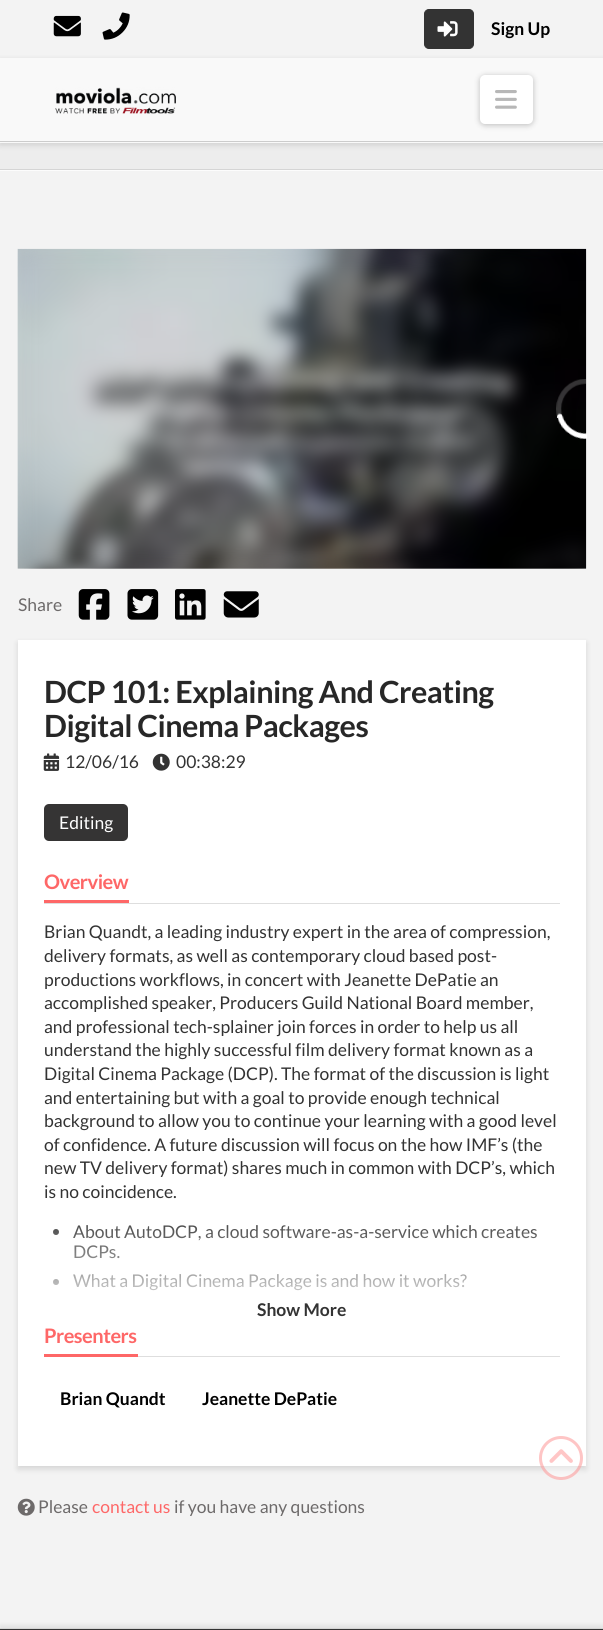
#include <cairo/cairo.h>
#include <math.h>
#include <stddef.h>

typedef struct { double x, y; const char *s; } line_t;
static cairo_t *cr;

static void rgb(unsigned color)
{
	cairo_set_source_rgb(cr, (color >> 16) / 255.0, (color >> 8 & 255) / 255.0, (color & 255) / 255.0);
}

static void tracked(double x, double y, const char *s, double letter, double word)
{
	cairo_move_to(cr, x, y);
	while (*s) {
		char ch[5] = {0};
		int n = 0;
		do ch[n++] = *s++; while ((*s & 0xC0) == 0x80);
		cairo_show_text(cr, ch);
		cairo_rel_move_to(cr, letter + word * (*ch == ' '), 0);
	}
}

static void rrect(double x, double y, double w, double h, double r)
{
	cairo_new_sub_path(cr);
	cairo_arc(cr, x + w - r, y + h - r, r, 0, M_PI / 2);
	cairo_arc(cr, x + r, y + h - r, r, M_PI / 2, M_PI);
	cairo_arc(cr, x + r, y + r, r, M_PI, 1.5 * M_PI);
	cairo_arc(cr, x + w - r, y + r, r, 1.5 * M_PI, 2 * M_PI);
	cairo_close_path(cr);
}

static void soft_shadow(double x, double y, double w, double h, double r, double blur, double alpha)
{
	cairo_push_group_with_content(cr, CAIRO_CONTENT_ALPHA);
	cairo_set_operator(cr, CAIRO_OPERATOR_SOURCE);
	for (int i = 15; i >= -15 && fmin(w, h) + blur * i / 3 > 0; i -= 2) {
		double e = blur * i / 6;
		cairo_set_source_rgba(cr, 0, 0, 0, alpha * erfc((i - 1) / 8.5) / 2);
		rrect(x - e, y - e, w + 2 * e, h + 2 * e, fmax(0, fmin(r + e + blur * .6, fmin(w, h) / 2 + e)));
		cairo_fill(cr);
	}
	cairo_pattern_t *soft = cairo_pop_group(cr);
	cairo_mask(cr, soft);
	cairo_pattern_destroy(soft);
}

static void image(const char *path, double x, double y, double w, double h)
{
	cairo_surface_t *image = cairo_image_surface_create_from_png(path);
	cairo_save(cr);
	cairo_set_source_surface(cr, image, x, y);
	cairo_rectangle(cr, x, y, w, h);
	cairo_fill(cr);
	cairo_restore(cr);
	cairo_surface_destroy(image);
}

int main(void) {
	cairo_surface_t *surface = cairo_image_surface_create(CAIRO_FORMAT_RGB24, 603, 1630);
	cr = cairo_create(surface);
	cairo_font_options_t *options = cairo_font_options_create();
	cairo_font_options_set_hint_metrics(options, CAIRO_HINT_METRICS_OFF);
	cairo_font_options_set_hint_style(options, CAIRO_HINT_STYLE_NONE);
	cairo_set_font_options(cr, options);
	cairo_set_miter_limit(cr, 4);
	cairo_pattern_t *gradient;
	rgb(0xf3f3f3);
	cairo_paint(cr);
	image("img/1.png", 53, 15, 28, 22);
	image("img/2.png", 102, 12, 28, 28);
	rgb(0x333333);
	rrect(424.5, 9.5, 49, 39, 4.5);
	cairo_fill_preserve(cr);
	cairo_set_line_width(cr, 1);
	cairo_stroke(cr);
	image("img/3.png", 437, 21, 21, 16);
	rgb(0xededed);
	cairo_rectangle(cr, 0, 143, 603, 26);
	cairo_fill(cr);
	rgb(0x000000);
	soft_shadow(0, 60, 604, 85, 0, 3, 0.13);
	rgb(0xf9f9f9);
	cairo_rectangle(cr, 0, 58, 603, 85);
	cairo_fill(cr);
	rgb(0xcccccc);
	cairo_rectangle(cr, 0, 141, 603, 1);
	cairo_fill(cr);
	image("img/4.png", 55, 87, 121, 27);
	rgb(0x000000);
	soft_shadow(480, 76, 53, 49, 5, 3, 0.25);
	rgb(0xffffff);
	rrect(480, 75, 53, 49, 5);
	cairo_fill(cr);
	image("img/5.png", 495, 90, 22, 19);
	rgb(0xfcfcfc);
	cairo_new_path(cr);
	cairo_move_to(cr, 0, 170);
	cairo_line_to(cr, 0, 171);
	cairo_line_to(cr, 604, 171);
	cairo_line_to(cr, 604, 144);
	cairo_line_to(cr, 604, 170);
	cairo_close_path(cr);
	cairo_fill(cr);
	rgb(0xd5d5d5);
	cairo_rectangle(cr, 0, 169, 603, 1);
	cairo_fill(cr);
	image("img/6.png", 17, 248, 570, 321);
	image("img/7.png", 78, 589, 32, 31);
	image("img/8.png", 127, 589, 32, 31);
	image("img/9.png", 175, 589, 31, 31);
	image("img/10.png", 223, 591, 36, 27);
	rgb(0x000000);
	soft_shadow(18, 643, 568, 826, 0, 3, 0.13);
	rgb(0xffffff);
	cairo_rectangle(cr, 18, 640, 568, 826);
	cairo_fill(cr);
	image("img/11.png", 43, 753, 17, 18);
	image("img/12.png", 152, 753, 18, 18);
	rgb(0x353434);
	rrect(44, 804, 84, 37, 5);
	cairo_fill(cr);
	rgb(0xdedede);
	cairo_rectangle(cr, 44, 903, 516, 1);
	cairo_fill(cr);
	rgb(0xfe6767);
	cairo_rectangle(cr, 44, 900, 85, 3);
	cairo_fill(cr);
	rgb(0x333333);
	cairo_arc(cr, 56, 1232, 3, 0, 2 * M_PI);
	cairo_fill(cr);
	cairo_arc(cr, 56, 1282, 3, 0, 2 * M_PI);
	cairo_fill(cr);
	rgb(0xdedede);
	cairo_rectangle(cr, 138, 1356, 422, 1);
	cairo_fill(cr);
	rgb(0xfe6767);
	cairo_rectangle(cr, 44, 1354, 94, 3);
	cairo_fill(cr);
	image("img/13.png", 17, 1498, 18, 18);
	rgb(0x000000);
	soft_shadow(0, 1625, 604, 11, 0, 2, 0.07);
	rgb(0x333333);
	cairo_rectangle(cr, 0, 1629, 603, 1);
	cairo_fill(cr);
	rgb(0xd4d4d4);
	cairo_rectangle(cr, 0, 1628, 603, 1);
	cairo_fill(cr);
	cairo_set_source_rgba(cr, 1, 1, 1, 0.38);
	cairo_arc(cr, 561, 1458, 22, 0, 2 * M_PI);
	cairo_fill(cr);
	cairo_arc(cr, 561, 1458, 20.5, 0, 2 * M_PI);
	cairo_set_source_rgba(cr, 0.996, 0.404, 0.404, 0.38);
	cairo_set_line_width(cr, 3);
	cairo_stroke(cr);
	image("img/14.png", 549, 1449, 24, 14);
	cairo_select_font_face(cr, "Lato", CAIRO_FONT_SLANT_NORMAL, CAIRO_FONT_WEIGHT_BOLD);
	cairo_set_font_size(cr, 17.5);
	rgb(0x000000);
	cairo_move_to(cr, 491, 35);
	cairo_show_text(cr, "Sign Up");
	cairo_select_font_face(cr, "Lato", CAIRO_FONT_SLANT_NORMAL, CAIRO_FONT_WEIGHT_NORMAL);
	rgb(0x6d6a6a);
	cairo_move_to(cr, 18, 611);
	cairo_show_text(cr, "Share");
	cairo_select_font_face(cr, "Lato", CAIRO_FONT_SLANT_NORMAL, CAIRO_FONT_WEIGHT_BOLD);
	cairo_set_font_size(cr, 30.6);
	rgb(0x272727);
	tracked(44, 703, "DCP 101: Explaining And Creating", -0.5, 0);
	tracked(44, 737, "Digital Cinema Packages", -0.5, 0);
	cairo_select_font_face(cr, "Lato", CAIRO_FONT_SLANT_NORMAL, CAIRO_FONT_WEIGHT_NORMAL);
	cairo_set_font_size(cr, 17.5);
	rgb(0x333333);
	cairo_move_to(cr, 65, 768);
	cairo_show_text(cr, "12/06/16");
	cairo_move_to(cr, 176, 768);
	cairo_show_text(cr, "00:38:29");
	rgb(0xffffff);
	cairo_move_to(cr, 59, 829);
	cairo_show_text(cr, "Editing");
	cairo_select_font_face(cr, "Lato", CAIRO_FONT_SLANT_NORMAL, CAIRO_FONT_WEIGHT_BOLD);
	cairo_set_font_size(cr, 20);
	rgb(0xfe6767);
	tracked(44, 889, "Overview", -0.5, 0);
	cairo_select_font_face(cr, "Lato", CAIRO_FONT_SLANT_NORMAL, CAIRO_FONT_WEIGHT_NORMAL);
	cairo_set_font_size(cr, 17.5);
	rgb(0x333333);
	{
		static const line_t items[] = {
			{44, 938, "Brian Quandt, a leading industry expert in the area of compression,"},
			{44, 962, "delivery formats, as well as contemporary cloud based post-"},
			{44, 986, "productions workflows, in concert with Jeanette DePatie an"},
			{44, 1009, "accomplished speaker, Producers Guild National Board member,"},
			{44, 1033, "and professional tech-splainer join forces in order to help us all"},
			{44, 1056, "understand the highly successful film delivery format known as a"},
			{44, 1080, "Digital Cinema Package (DCP). The format of the discussion is light"},
			{44, 1104, "and entertaining but with a goal to provide enough technical"},
			{44, 1127, "background to allow you to continue your learning with a good level"},
			{44, 1151, "of confidence. A future discussion will focus on the how IMF’s (the"},
			{44, 1174, "new TV delivery format) shares much in common with DCP’s, which"},
			{44, 1198, "is no coincidence."},
			{73, 1238, "About AutoDCP, a cloud software-as-a-service which creates"},
			{73, 1258, "DCPs."},
			{73, 1287, "What a Digital Cinema Package is and how it works?"},
		};
		for (size_t i = 0; i < sizeof items / sizeof *items; i++) {
			cairo_move_to(cr, items[i].x, items[i].y);
			cairo_show_text(cr, items[i].s);
		}
	}
	gradient = cairo_pattern_create_linear(302, 1211, 302, 1323);
	cairo_pattern_add_color_stop_rgba(gradient, 0, 1, 1, 1, 0);
	cairo_pattern_add_color_stop_rgba(gradient, 1, 1, 1, 1, 1);
	cairo_set_source(cr, gradient);
	cairo_pattern_destroy(gradient);
	cairo_rectangle(cr, 53, 1225, 484, 66);
	cairo_fill(cr);
	cairo_select_font_face(cr, "Lato", CAIRO_FONT_SLANT_NORMAL, CAIRO_FONT_WEIGHT_BOLD);
	rgb(0x333333);
	cairo_move_to(cr, 257, 1316);
	cairo_show_text(cr, "Show More");
	cairo_set_font_size(cr, 20);
	rgb(0xfe6767);
	tracked(44, 1343, "Presenters", -0.5, 0);
	cairo_set_font_size(cr, 17.5);
	rgb(0x000000);
	cairo_move_to(cr, 60, 1405);
	cairo_show_text(cr, "Brian Quandt");
	cairo_move_to(cr, 202, 1405);
	cairo_show_text(cr, "Jeanette DePatie");
	cairo_select_font_face(cr, "Lato", CAIRO_FONT_SLANT_NORMAL, CAIRO_FONT_WEIGHT_NORMAL);
	rgb(0x6d6a6a);
	cairo_move_to(cr, 38, 1513);
	cairo_show_text(cr, "Please");
	rgb(0xfe6767);
	cairo_move_to(cr, 92, 1513);
	cairo_show_text(cr, "contact us");
	rgb(0x6d6a6a);
	cairo_move_to(cr, 174, 1513);
	cairo_show_text(cr, "if you have any questions");
	cairo_surface_write_to_png(surface, "page.png");
	cairo_font_options_destroy(options);
	cairo_destroy(cr);
	cairo_surface_destroy(surface);
	return 0;
}
